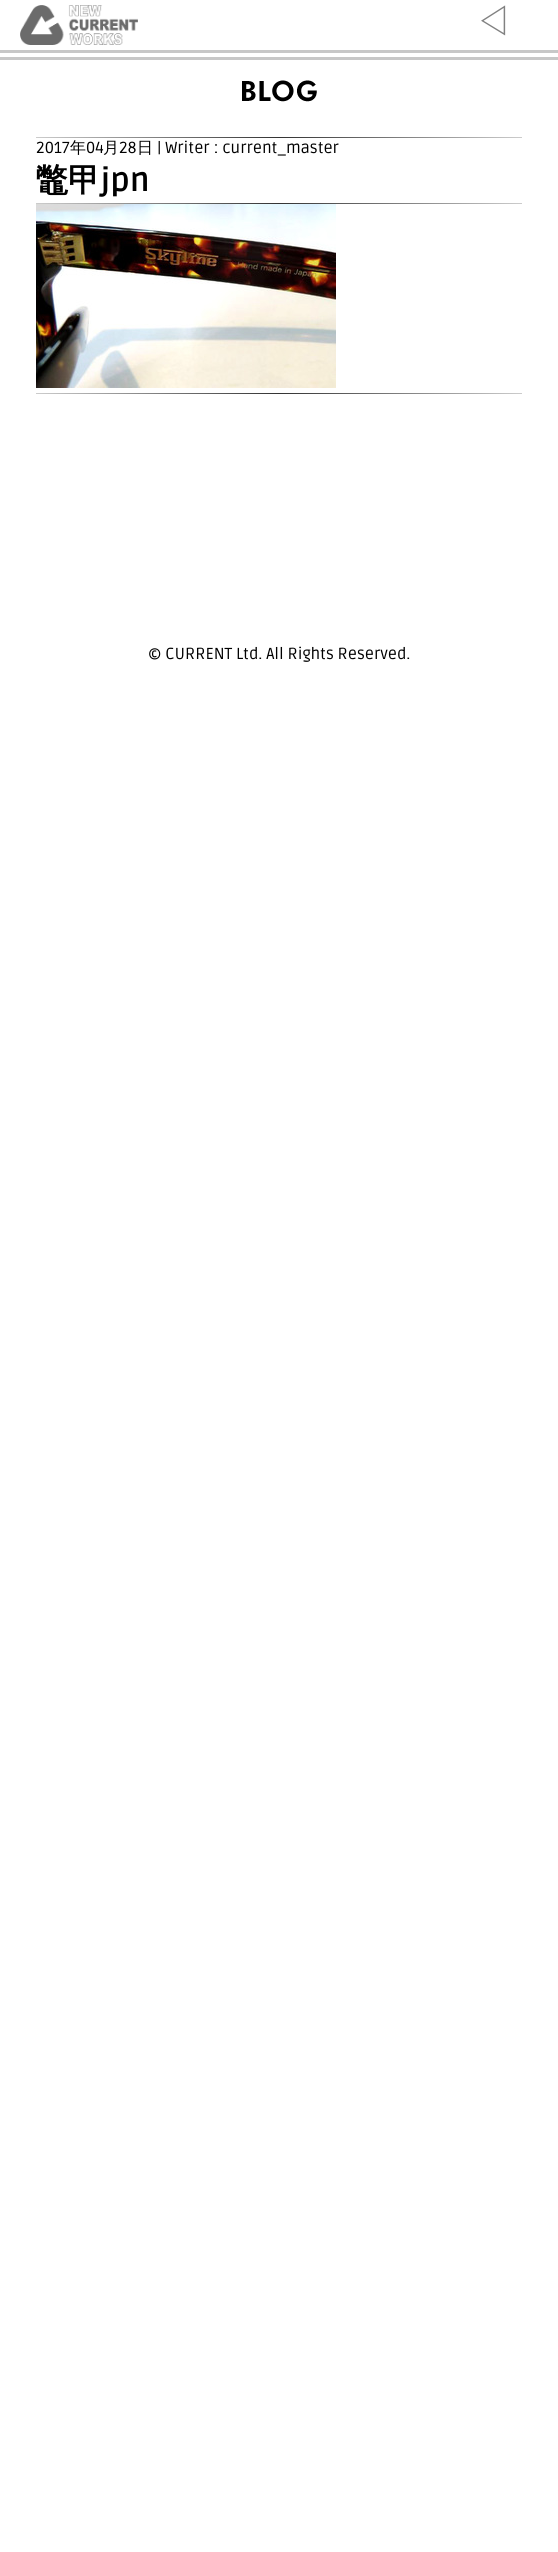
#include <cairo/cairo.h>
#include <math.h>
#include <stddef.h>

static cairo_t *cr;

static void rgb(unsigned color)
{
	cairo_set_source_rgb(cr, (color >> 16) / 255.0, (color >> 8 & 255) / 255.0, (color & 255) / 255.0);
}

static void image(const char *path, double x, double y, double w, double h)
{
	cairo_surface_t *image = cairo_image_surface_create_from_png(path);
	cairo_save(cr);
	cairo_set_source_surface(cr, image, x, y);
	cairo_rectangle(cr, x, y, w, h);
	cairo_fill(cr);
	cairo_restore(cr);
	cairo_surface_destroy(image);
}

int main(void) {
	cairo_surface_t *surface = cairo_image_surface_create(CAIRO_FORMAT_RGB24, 558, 2552);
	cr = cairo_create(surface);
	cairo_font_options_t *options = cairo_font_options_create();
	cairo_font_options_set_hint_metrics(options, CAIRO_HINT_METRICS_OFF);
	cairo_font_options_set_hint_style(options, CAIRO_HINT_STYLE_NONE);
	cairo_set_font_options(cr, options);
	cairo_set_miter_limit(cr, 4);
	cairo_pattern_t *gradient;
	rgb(0xffffff);
	cairo_paint(cr);
	rgb(0xc7c7c7);
	cairo_rectangle(cr, 0, 50, 558, 3);
	cairo_fill(cr);
	cairo_rectangle(cr, 0, 57, 558, 3);
	cairo_fill(cr);
	image("img/1.png", 20, 5, 118, 40);
	image("img/2.png", 242, 80, 75, 22);
	gradient = cairo_pattern_create_linear(36, 138, 522, 137);
	cairo_pattern_add_color_stop_rgba(gradient, 0, 0.8, 0.8, 0.8, 1);
	cairo_pattern_add_color_stop_rgba(gradient, 0.5, 0.2, 0.2, 0.2, 1);
	cairo_pattern_add_color_stop_rgba(gradient, 1, 0.8, 0.8, 0.8, 1);
	cairo_set_source(cr, gradient);
	cairo_pattern_destroy(gradient);
	cairo_rectangle(cr, 36, 137, 486, 1);
	cairo_fill(cr);
	gradient = cairo_pattern_create_linear(36, 204, 522, 203);
	cairo_pattern_add_color_stop_rgba(gradient, 0, 0.8, 0.8, 0.8, 1);
	cairo_pattern_add_color_stop_rgba(gradient, 0.5, 0.2, 0.2, 0.2, 1);
	cairo_pattern_add_color_stop_rgba(gradient, 1, 0.8, 0.8, 0.8, 1);
	cairo_set_source(cr, gradient);
	cairo_pattern_destroy(gradient);
	cairo_rectangle(cr, 36, 203, 486, 1);
	cairo_fill(cr);
	image("img/3.png", 36, 204, 300, 184);
	gradient = cairo_pattern_create_linear(36, 394, 522, 394);
	cairo_pattern_add_color_stop_rgba(gradient, 0, 0.8, 0.8, 0.8, 1);
	cairo_pattern_add_color_stop_rgba(gradient, 0.5, 0.2, 0.2, 0.2, 1);
	cairo_pattern_add_color_stop_rgba(gradient, 1, 0.8, 0.8, 0.8, 1);
	cairo_set_source(cr, gradient);
	cairo_pattern_destroy(gradient);
	cairo_rectangle(cr, 36, 393, 486, 1);
	cairo_fill(cr);
	cairo_select_font_face(cr, "WenQuanYi Zen Hei Medium", CAIRO_FONT_SLANT_NORMAL, CAIRO_FONT_WEIGHT_NORMAL);
	cairo_set_font_size(cr, 37);
	rgb(0x818181);
	cairo_move_to(cr, 474, 34);
	cairo_show_text(cr, "◁");
	cairo_select_font_face(cr, "Ruda", CAIRO_FONT_SLANT_NORMAL, CAIRO_FONT_WEIGHT_NORMAL);
	cairo_set_font_size(cr, 16);
	rgb(0x000000);
	cairo_move_to(cr, 36, 153);
	cairo_show_text(cr, "2017");
	cairo_select_font_face(cr, "WenQuanYi Zen Hei Medium", CAIRO_FONT_SLANT_NORMAL, CAIRO_FONT_WEIGHT_NORMAL);
	cairo_move_to(cr, 70, 153);
	cairo_show_text(cr, "年");
	cairo_select_font_face(cr, "Ruda", CAIRO_FONT_SLANT_NORMAL, CAIRO_FONT_WEIGHT_NORMAL);
	cairo_move_to(cr, 86, 153);
	cairo_show_text(cr, "04");
	cairo_select_font_face(cr, "WenQuanYi Zen Hei Medium", CAIRO_FONT_SLANT_NORMAL, CAIRO_FONT_WEIGHT_NORMAL);
	cairo_move_to(cr, 103, 153);
	cairo_show_text(cr, "月");
	cairo_select_font_face(cr, "Ruda", CAIRO_FONT_SLANT_NORMAL, CAIRO_FONT_WEIGHT_NORMAL);
	cairo_move_to(cr, 119, 153);
	cairo_show_text(cr, "28");
	cairo_select_font_face(cr, "WenQuanYi Zen Hei Medium", CAIRO_FONT_SLANT_NORMAL, CAIRO_FONT_WEIGHT_NORMAL);
	cairo_move_to(cr, 137, 153);
	cairo_show_text(cr, "日");
	cairo_select_font_face(cr, "Ruda", CAIRO_FONT_SLANT_NORMAL, CAIRO_FONT_WEIGHT_NORMAL);
	cairo_move_to(cr, 157, 153);
	cairo_show_text(cr, "| Writer : current_master");
	cairo_select_font_face(cr, "WenQuanYi Zen Hei", CAIRO_FONT_SLANT_NORMAL, CAIRO_FONT_WEIGHT_BOLD);
	cairo_set_font_size(cr, 32);
	cairo_move_to(cr, 36, 191);
	cairo_show_text(cr, "鼈甲");
	cairo_select_font_face(cr, "Ruda", CAIRO_FONT_SLANT_NORMAL, CAIRO_FONT_WEIGHT_BOLD);
	cairo_move_to(cr, 100, 191);
	cairo_show_text(cr, "jpn");
	cairo_select_font_face(cr, "Ruda", CAIRO_FONT_SLANT_NORMAL, CAIRO_FONT_WEIGHT_NORMAL);
	cairo_set_font_size(cr, 16);
	cairo_move_to(cr, 148, 659);
	cairo_show_text(cr, "© CURRENT Ltd. All Rights Reserved.");
	cairo_surface_write_to_png(surface, "page.png");
	cairo_font_options_destroy(options);
	cairo_destroy(cr);
	cairo_surface_destroy(surface);
	return 0;
}
